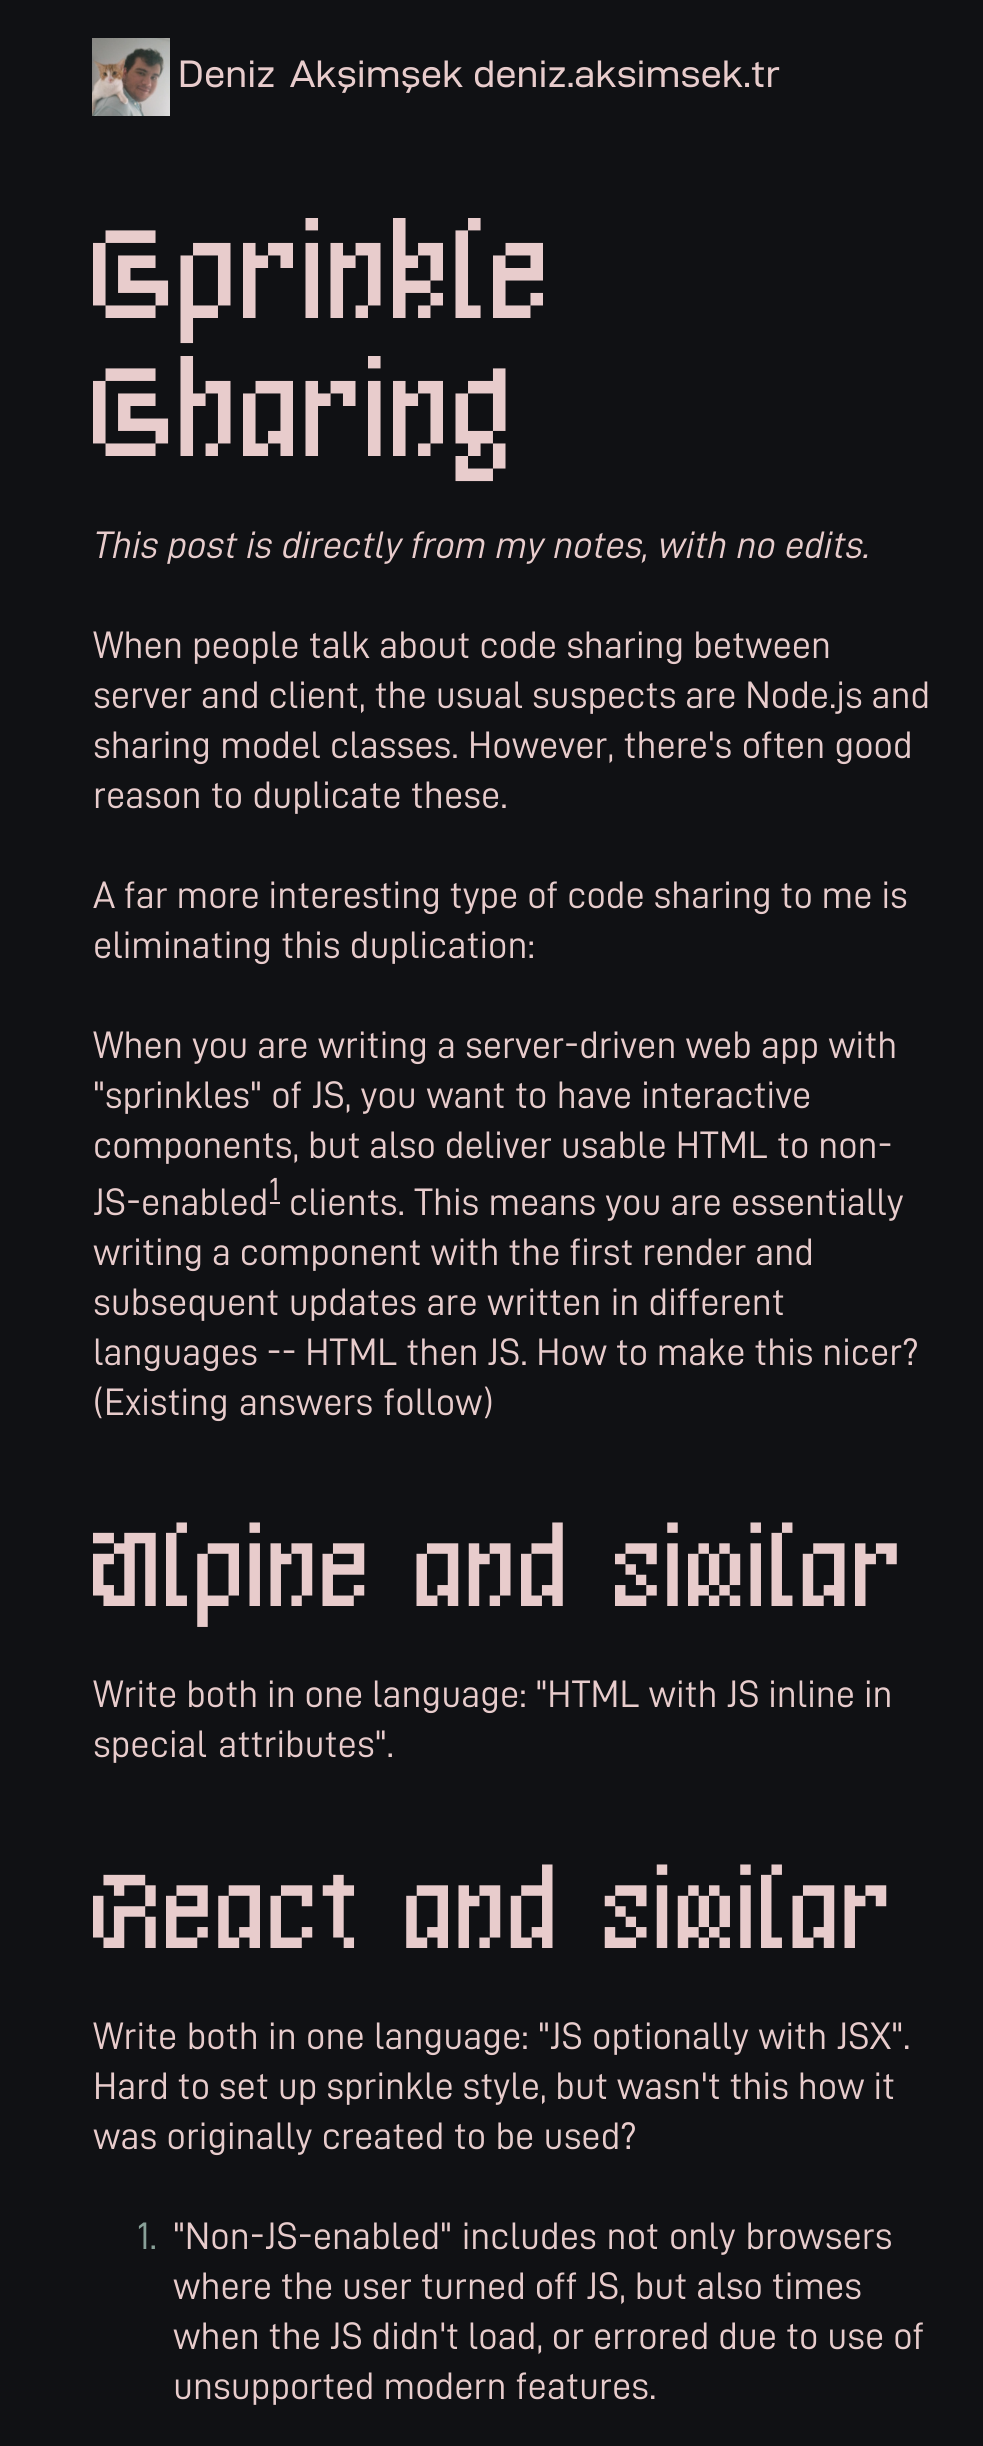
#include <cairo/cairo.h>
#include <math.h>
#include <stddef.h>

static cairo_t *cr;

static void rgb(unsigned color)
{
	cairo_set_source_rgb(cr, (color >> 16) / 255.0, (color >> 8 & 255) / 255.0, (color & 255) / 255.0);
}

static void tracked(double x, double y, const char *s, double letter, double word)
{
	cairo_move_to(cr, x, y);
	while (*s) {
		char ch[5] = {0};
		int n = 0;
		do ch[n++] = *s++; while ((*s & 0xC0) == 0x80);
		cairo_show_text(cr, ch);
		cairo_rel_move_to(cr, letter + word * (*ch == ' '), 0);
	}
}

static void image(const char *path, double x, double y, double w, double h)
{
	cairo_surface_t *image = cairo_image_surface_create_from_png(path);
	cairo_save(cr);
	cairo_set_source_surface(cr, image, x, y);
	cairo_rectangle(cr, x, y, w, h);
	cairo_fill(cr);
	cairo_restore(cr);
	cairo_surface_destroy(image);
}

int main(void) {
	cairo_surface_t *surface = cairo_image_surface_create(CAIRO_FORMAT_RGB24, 983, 2446);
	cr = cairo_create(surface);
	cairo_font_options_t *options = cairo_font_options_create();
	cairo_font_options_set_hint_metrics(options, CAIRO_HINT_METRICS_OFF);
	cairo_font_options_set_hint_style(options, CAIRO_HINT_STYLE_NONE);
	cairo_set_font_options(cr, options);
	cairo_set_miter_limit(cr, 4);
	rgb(0x101114);
	cairo_paint(cr);
	image("img/1.png", 92, 38, 78, 78);
	rgb(0xe8cccc);
	cairo_rectangle(cr, 270, 1202, 10, 2);
	cairo_fill(cr);
	cairo_select_font_face(cr, "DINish", CAIRO_FONT_SLANT_NORMAL, CAIRO_FONT_WEIGHT_NORMAL);
	cairo_set_font_size(cr, 38.4);
	tracked(178, 87, "Deniz Akşimşek", 0, 6);
	cairo_move_to(cr, 473, 87);
	cairo_show_text(cr, "deniz.aksimsek.tr");
	cairo_select_font_face(cr, "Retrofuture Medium", CAIRO_FONT_SLANT_NORMAL, CAIRO_FONT_WEIGHT_NORMAL);
	cairo_set_font_size(cr, 138);
	cairo_move_to(cr, 93, 318);
	cairo_show_text(cr, "Sprinkle");
	cairo_move_to(cr, 93, 456);
	cairo_show_text(cr, "Sharing");
	cairo_select_font_face(cr, "DINish", CAIRO_FONT_SLANT_ITALIC, CAIRO_FONT_WEIGHT_NORMAL);
	cairo_set_font_size(cr, 38.4);
	tracked(93, 558, "This post is directly from my notes, with no edits.", 0, 0.75);
	cairo_select_font_face(cr, "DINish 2", CAIRO_FONT_SLANT_NORMAL, CAIRO_FONT_WEIGHT_NORMAL);
	tracked(93, 658, "When people talk about code sharing between", 0, 0.75);
	tracked(93, 708, "server and client, the usual suspects are Node.js and", 0, 0.5);
	tracked(93, 758, "sharing model classes. However, there's often good", 0, 1);
	tracked(93, 808, "reason to duplicate these.", 0, 1);
	tracked(93, 908, "A far more interesting type of code sharing to me is", 0, 0.5);
	tracked(93, 958, "eliminating this duplication:", 0, 1);
	tracked(93, 1058, "When you are writing a server-driven web app with", 0, 0.75);
	tracked(93, 1108, "\"sprinkles\" of JS, you want to have interactive", 0, 1);
	tracked(93, 1158, "components, but also deliver usable HTML to non-", 0, 0.5);
	cairo_move_to(cr, 93, 1215);
	cairo_show_text(cr, "JS-enabled");
	cairo_set_font_size(cr, 32);
	cairo_move_to(cr, 269, 1200);
	cairo_show_text(cr, "1");
	cairo_set_font_size(cr, 38.4);
	tracked(289, 1215, "clients. This means you are essentially", 0, 0.75);
	tracked(93, 1265, "writing a component with the first render and", 0, 0.5);
	tracked(93, 1315, "subsequent updates are written in different", 0, 1);
	tracked(93, 1365, "languages -- HTML then JS. How to make this nicer?", 0, 0.25);
	tracked(93, 1415, "(Existing answers follow)", 0, 2);
	cairo_select_font_face(cr, "Retrofuture Medium", CAIRO_FONT_SLANT_NORMAL, CAIRO_FONT_WEIGHT_NORMAL);
	cairo_set_font_size(cr, 115.25);
	cairo_move_to(cr, 93, 1606);
	cairo_show_text(cr, "Alpine and similar");
	cairo_select_font_face(cr, "DINish 2", CAIRO_FONT_SLANT_NORMAL, CAIRO_FONT_WEIGHT_NORMAL);
	cairo_set_font_size(cr, 38.4);
	tracked(93, 1707, "Write both in one language: \"HTML with JS inline in", 0, 0.5);
	tracked(93, 1757, "special attributes\".", 0, 3);
	cairo_select_font_face(cr, "Retrofuture Medium", CAIRO_FONT_SLANT_NORMAL, CAIRO_FONT_WEIGHT_NORMAL);
	cairo_set_font_size(cr, 115.25);
	cairo_move_to(cr, 93, 1948);
	cairo_show_text(cr, "React and similar");
	cairo_select_font_face(cr, "DINish 2", CAIRO_FONT_SLANT_NORMAL, CAIRO_FONT_WEIGHT_NORMAL);
	cairo_set_font_size(cr, 38.4);
	tracked(93, 2049, "Write both in one language: \"JS optionally with JSX\".", 0, 1);
	tracked(93, 2099, "Hard to set up sprinkle style, but wasn't this how it", 0, 0.5);
	tracked(93, 2149, "was originally created to be used?", 0, 1);
	rgb(0x88a098);
	cairo_move_to(cr, 137, 2249);
	cairo_show_text(cr, "1.");
	rgb(0xe8cccc);
	tracked(173, 2249, "\"Non-JS-enabled\" includes not only browsers", 0, 1.5);
	tracked(173, 2299, "where the user turned off JS, but also times", 0, 0.5);
	tracked(173, 2349, "when the JS didn't load, or errored due to use of", 0, 0.5);
	tracked(173, 2399, "unsupported modern features.", 0, 1);
	cairo_surface_write_to_png(surface, "page.png");
	cairo_font_options_destroy(options);
	cairo_destroy(cr);
	cairo_surface_destroy(surface);
	return 0;
}
